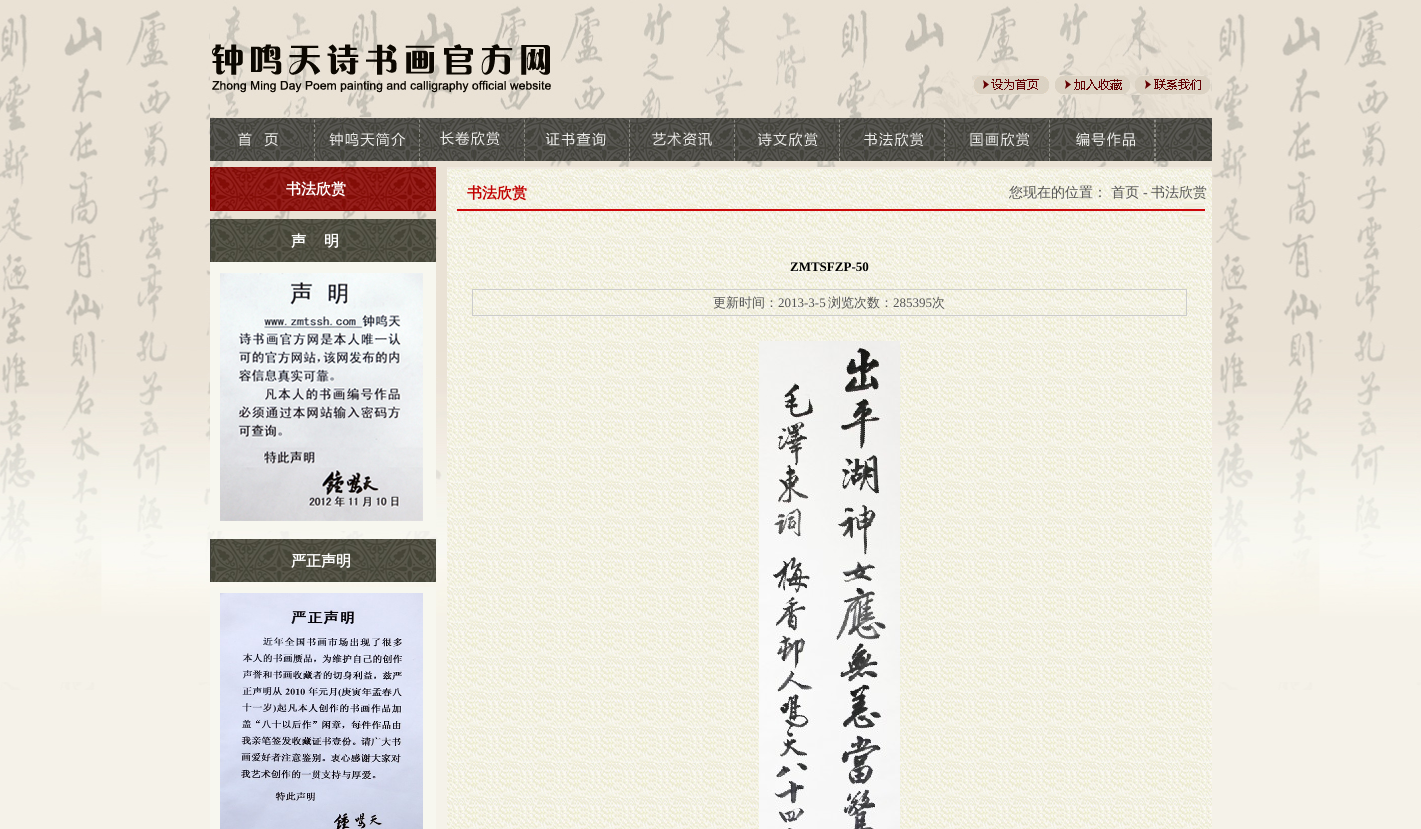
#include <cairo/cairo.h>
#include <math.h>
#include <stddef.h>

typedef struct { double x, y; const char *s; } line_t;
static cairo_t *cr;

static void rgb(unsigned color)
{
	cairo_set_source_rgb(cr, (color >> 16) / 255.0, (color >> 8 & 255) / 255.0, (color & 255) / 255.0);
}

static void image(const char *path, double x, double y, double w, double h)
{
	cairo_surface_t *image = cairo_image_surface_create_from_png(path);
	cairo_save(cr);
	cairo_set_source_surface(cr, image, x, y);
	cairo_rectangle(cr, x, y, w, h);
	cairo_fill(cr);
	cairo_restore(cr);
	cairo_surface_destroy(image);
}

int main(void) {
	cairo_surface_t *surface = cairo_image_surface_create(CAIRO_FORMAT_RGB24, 1421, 829);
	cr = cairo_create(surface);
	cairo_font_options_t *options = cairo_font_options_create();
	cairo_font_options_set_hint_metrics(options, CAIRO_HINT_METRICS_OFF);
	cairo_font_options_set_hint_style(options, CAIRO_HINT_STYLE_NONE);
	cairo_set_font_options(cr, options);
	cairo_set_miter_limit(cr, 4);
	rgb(0xf5f2e9);
	cairo_paint(cr);
	image("img/1.png", 0, 0, 1421, 690);
	image("img/2.png", 210, 3, 1002, 115);
	image("img/3.png", 972, 75, 80, 20);
	image("img/4.png", 1052, 75, 80, 20);
	image("img/5.png", 1132, 75, 80, 20);
	image("img/6.png", 1155, 118, 57, 43);
	image("img/7.png", 210, 118, 105, 43);
	image("img/8.png", 315, 118, 105, 43);
	image("img/9.png", 420, 118, 105, 43);
	image("img/10.png", 525, 118, 105, 43);
	image("img/11.png", 630, 118, 105, 43);
	image("img/12.png", 735, 118, 105, 43);
	image("img/13.png", 840, 118, 105, 43);
	image("img/14.png", 945, 118, 105, 43);
	image("img/15.png", 1050, 118, 105, 43);
	image("img/16.png", 210, 167, 226, 44);
	image("img/17.png", 210, 219, 226, 44);
	rgb(0xf7f7ef);
	cairo_rectangle(cr, 210, 263, 226, 268);
	cairo_fill(cr);
	image("img/18.png", 220, 273, 203, 248);
	image("img/17.png", 210, 539, 226, 44);
	cairo_rectangle(cr, 210, 587, 226, 242);
	cairo_fill(cr);
	image("img/19.png", 220, 593, 203, 236);
	image("img/20.png", 447, 167, 765, 52);
	image("img/21.png", 447, 219, 765, 610);
	cairo_rectangle(cr, 472.5, 289.5, 714, 26);
	rgb(0xcccccc);
	cairo_set_line_width(cr, 1);
	cairo_stroke(cr);
	image("img/22.png", 759, 341, 141, 488);
	cairo_select_font_face(cr, "WenQuanYi Zen Hei", CAIRO_FONT_SLANT_NORMAL, CAIRO_FONT_WEIGHT_BOLD);
	cairo_set_font_size(cr, 15);
	rgb(0xffffff);
	{
		static const line_t items[] = {
			{286, 194, "书法欣赏"},
			{291, 246, "声"},
			{324, 246, "明"},
			{291, 566, "严正声明"},
		};
		for (size_t i = 0; i < sizeof items / sizeof *items; i++) {
			cairo_move_to(cr, items[i].x, items[i].y);
			cairo_show_text(cr, items[i].s);
		}
	}
	rgb(0xc20101);
	cairo_move_to(cr, 467, 198);
	cairo_show_text(cr, "书法欣赏");
	cairo_select_font_face(cr, "WenQuanYi Zen Hei Medium", CAIRO_FONT_SLANT_NORMAL, CAIRO_FONT_WEIGHT_NORMAL);
	cairo_set_font_size(cr, 14);
	rgb(0x545454);
	cairo_move_to(cr, 1009, 197);
	cairo_show_text(cr, "您现在的位置： 首页");
	cairo_select_font_face(cr, "Liberation Serif", CAIRO_FONT_SLANT_NORMAL, CAIRO_FONT_WEIGHT_NORMAL);
	cairo_move_to(cr, 1143, 197);
	cairo_show_text(cr, "-");
	cairo_select_font_face(cr, "WenQuanYi Zen Hei Medium", CAIRO_FONT_SLANT_NORMAL, CAIRO_FONT_WEIGHT_NORMAL);
	cairo_move_to(cr, 1151, 197);
	cairo_show_text(cr, "书法欣赏");
	cairo_select_font_face(cr, "Liberation Serif", CAIRO_FONT_SLANT_NORMAL, CAIRO_FONT_WEIGHT_BOLD);
	cairo_set_font_size(cr, 13);
	rgb(0x000000);
	cairo_move_to(cr, 790, 271);
	cairo_show_text(cr, "ZMTSFZP-50");
	cairo_select_font_face(cr, "WenQuanYi Zen Hei Medium", CAIRO_FONT_SLANT_NORMAL, CAIRO_FONT_WEIGHT_NORMAL);
	rgb(0x545454);
	cairo_move_to(cr, 713, 307);
	cairo_show_text(cr, "更新时间：");
	cairo_select_font_face(cr, "Liberation Serif", CAIRO_FONT_SLANT_NORMAL, CAIRO_FONT_WEIGHT_NORMAL);
	cairo_move_to(cr, 778, 307);
	cairo_show_text(cr, "2013-3-5");
	cairo_select_font_face(cr, "WenQuanYi Zen Hei Medium", CAIRO_FONT_SLANT_NORMAL, CAIRO_FONT_WEIGHT_NORMAL);
	cairo_move_to(cr, 828, 307);
	cairo_show_text(cr, "浏览次数：");
	cairo_select_font_face(cr, "Liberation Serif", CAIRO_FONT_SLANT_NORMAL, CAIRO_FONT_WEIGHT_NORMAL);
	cairo_move_to(cr, 893, 307);
	cairo_show_text(cr, "285395");
	cairo_select_font_face(cr, "WenQuanYi Zen Hei Medium", CAIRO_FONT_SLANT_NORMAL, CAIRO_FONT_WEIGHT_NORMAL);
	cairo_move_to(cr, 932, 307);
	cairo_show_text(cr, "次");
	cairo_surface_write_to_png(surface, "page.png");
	cairo_font_options_destroy(options);
	cairo_destroy(cr);
	cairo_surface_destroy(surface);
	return 0;
}
